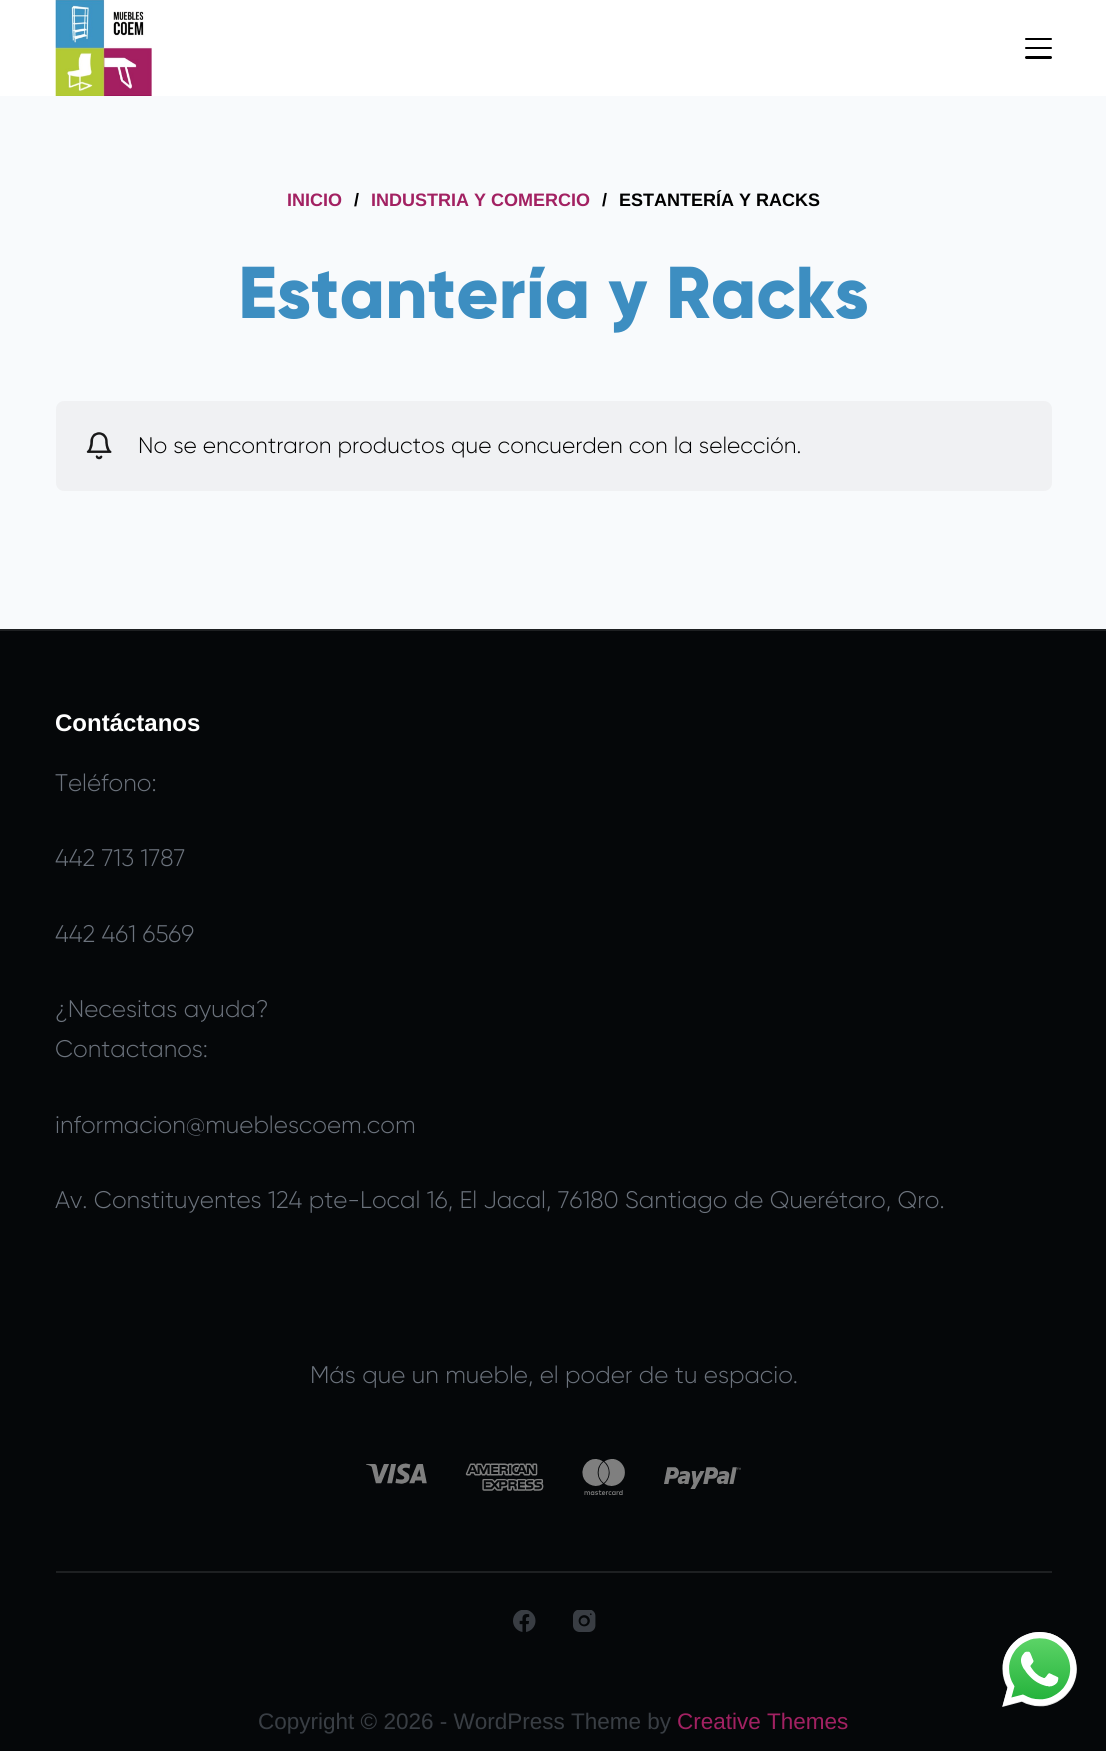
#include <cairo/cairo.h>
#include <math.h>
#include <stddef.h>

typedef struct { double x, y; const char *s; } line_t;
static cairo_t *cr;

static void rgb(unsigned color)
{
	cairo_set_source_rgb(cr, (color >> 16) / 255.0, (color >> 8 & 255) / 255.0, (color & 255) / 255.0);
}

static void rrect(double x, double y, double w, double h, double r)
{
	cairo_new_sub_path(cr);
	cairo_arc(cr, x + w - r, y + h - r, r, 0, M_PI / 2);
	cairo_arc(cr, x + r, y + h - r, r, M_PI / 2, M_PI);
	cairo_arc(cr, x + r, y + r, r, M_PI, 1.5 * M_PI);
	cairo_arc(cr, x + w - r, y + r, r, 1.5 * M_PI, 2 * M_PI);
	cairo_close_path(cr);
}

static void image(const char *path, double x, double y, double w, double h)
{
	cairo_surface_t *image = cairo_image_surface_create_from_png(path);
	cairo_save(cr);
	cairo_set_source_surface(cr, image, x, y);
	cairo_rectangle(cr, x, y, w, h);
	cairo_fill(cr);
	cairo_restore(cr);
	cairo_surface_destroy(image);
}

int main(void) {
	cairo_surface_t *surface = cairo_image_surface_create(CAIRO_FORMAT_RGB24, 1106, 1751);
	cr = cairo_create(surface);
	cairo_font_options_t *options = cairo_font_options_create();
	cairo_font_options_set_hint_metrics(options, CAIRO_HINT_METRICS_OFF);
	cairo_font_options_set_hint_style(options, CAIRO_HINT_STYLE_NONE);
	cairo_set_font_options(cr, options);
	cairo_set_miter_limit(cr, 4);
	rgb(0xf8fafc);
	cairo_paint(cr);
	rgb(0xffffff);
	cairo_rectangle(cr, 0, 0, 1106, 96);
	cairo_fill(cr);
	image("img/1.png", 55, 0, 97, 96);
	rgb(0x000000);
	rrect(1025, 38, 27, 2, 1);
	cairo_fill(cr);
	rrect(1025, 47, 27, 2, 1);
	cairo_fill(cr);
	rrect(1025, 56, 27, 3, 1.5);
	cairo_fill(cr);
	rgb(0xf0f1f3);
	rrect(56, 401, 996, 90, 8);
	cairo_fill(cr);
	image("img/2.png", 86, 432, 26, 28);
	rgb(0x050709);
	cairo_rectangle(cr, 0, 631, 1106, 1120);
	cairo_fill(cr);
	rgb(0x1e2022);
	cairo_rectangle(cr, 0, 629, 1106, 2);
	cairo_fill(cr);
	image("img/3.png", 366, 1459, 375, 36);
	cairo_rectangle(cr, 56, 1571, 996, 2);
	cairo_fill(cr);
	image("img/4.png", 513, 1610, 23, 22);
	image("img/5.png", 573, 1610, 23, 22);
	image("img/6.png", 1002, 1632, 75, 75);
	cairo_select_font_face(cr, "Liberation Sans", CAIRO_FONT_SLANT_NORMAL, CAIRO_FONT_WEIGHT_BOLD);
	cairo_set_font_size(cr, 18);
	rgb(0xa22162);
	cairo_move_to(cr, 287, 206);
	cairo_show_text(cr, "INICIO");
	rgb(0x000000);
	cairo_move_to(cr, 354, 206);
	cairo_show_text(cr, "/");
	rgb(0xa22162);
	cairo_move_to(cr, 371, 206);
	cairo_show_text(cr, "INDUSTRIA Y COMERCIO");
	rgb(0x000000);
	cairo_move_to(cr, 602, 206);
	cairo_show_text(cr, "/");
	cairo_move_to(cr, 619, 206);
	cairo_show_text(cr, "ESTANTERÍA Y RACKS");
	cairo_select_font_face(cr, "Gilroy ExtraBold", CAIRO_FONT_SLANT_NORMAL, CAIRO_FONT_WEIGHT_NORMAL);
	cairo_set_font_size(cr, 73.25);
	rgb(0x3d8ec1);
	cairo_move_to(cr, 238, 318);
	cairo_show_text(cr, "Estantería y Racks");
	cairo_select_font_face(cr, "Gilroy Light", CAIRO_FONT_SLANT_NORMAL, CAIRO_FONT_WEIGHT_NORMAL);
	cairo_set_font_size(cr, 22.5);
	rgb(0x000000);
	cairo_move_to(cr, 138, 453);
	cairo_show_text(cr, "No se encontraron productos que concuerden con la selección.");
	cairo_select_font_face(cr, "Liberation Sans", CAIRO_FONT_SLANT_NORMAL, CAIRO_FONT_WEIGHT_BOLD);
	cairo_set_font_size(cr, 24);
	rgb(0xffffff);
	cairo_move_to(cr, 55, 731);
	cairo_show_text(cr, "Contáctanos");
	cairo_select_font_face(cr, "Gilroy Light", CAIRO_FONT_SLANT_NORMAL, CAIRO_FONT_WEIGHT_NORMAL);
	rgb(0x6c737d);
	{
		static const line_t items[] = {
			{55, 791, "Teléfono:"},
			{55, 866, "442 713 1787"},
			{55, 942, "442 461 6569"},
			{55, 1017, "¿Necesitas ayuda?"},
			{55, 1057, "Contactanos:"},
			{55, 1133, "informacion@mueblescoem.com"},
			{55, 1208, "Av. Constituyentes 124 pte-Local 16, El Jacal, 76180 Santiago de Querétaro, Qro."},
			{310, 1383, "Más que un mueble, el poder de tu espacio."},
		};
		for (size_t i = 0; i < sizeof items / sizeof *items; i++) {
			cairo_move_to(cr, items[i].x, items[i].y);
			cairo_show_text(cr, items[i].s);
		}
	}
	cairo_select_font_face(cr, "Liberation Sans", CAIRO_FONT_SLANT_NORMAL, CAIRO_FONT_WEIGHT_NORMAL);
	cairo_set_font_size(cr, 22.5);
	rgb(0x393e44);
	cairo_move_to(cr, 258, 1729);
	cairo_show_text(cr, "Copyright © 2026 - WordPress Theme by");
	rgb(0xa22162);
	cairo_move_to(cr, 677, 1729);
	cairo_show_text(cr, "Creative Themes");
	cairo_surface_write_to_png(surface, "page.png");
	cairo_font_options_destroy(options);
	cairo_destroy(cr);
	cairo_surface_destroy(surface);
	return 0;
}
